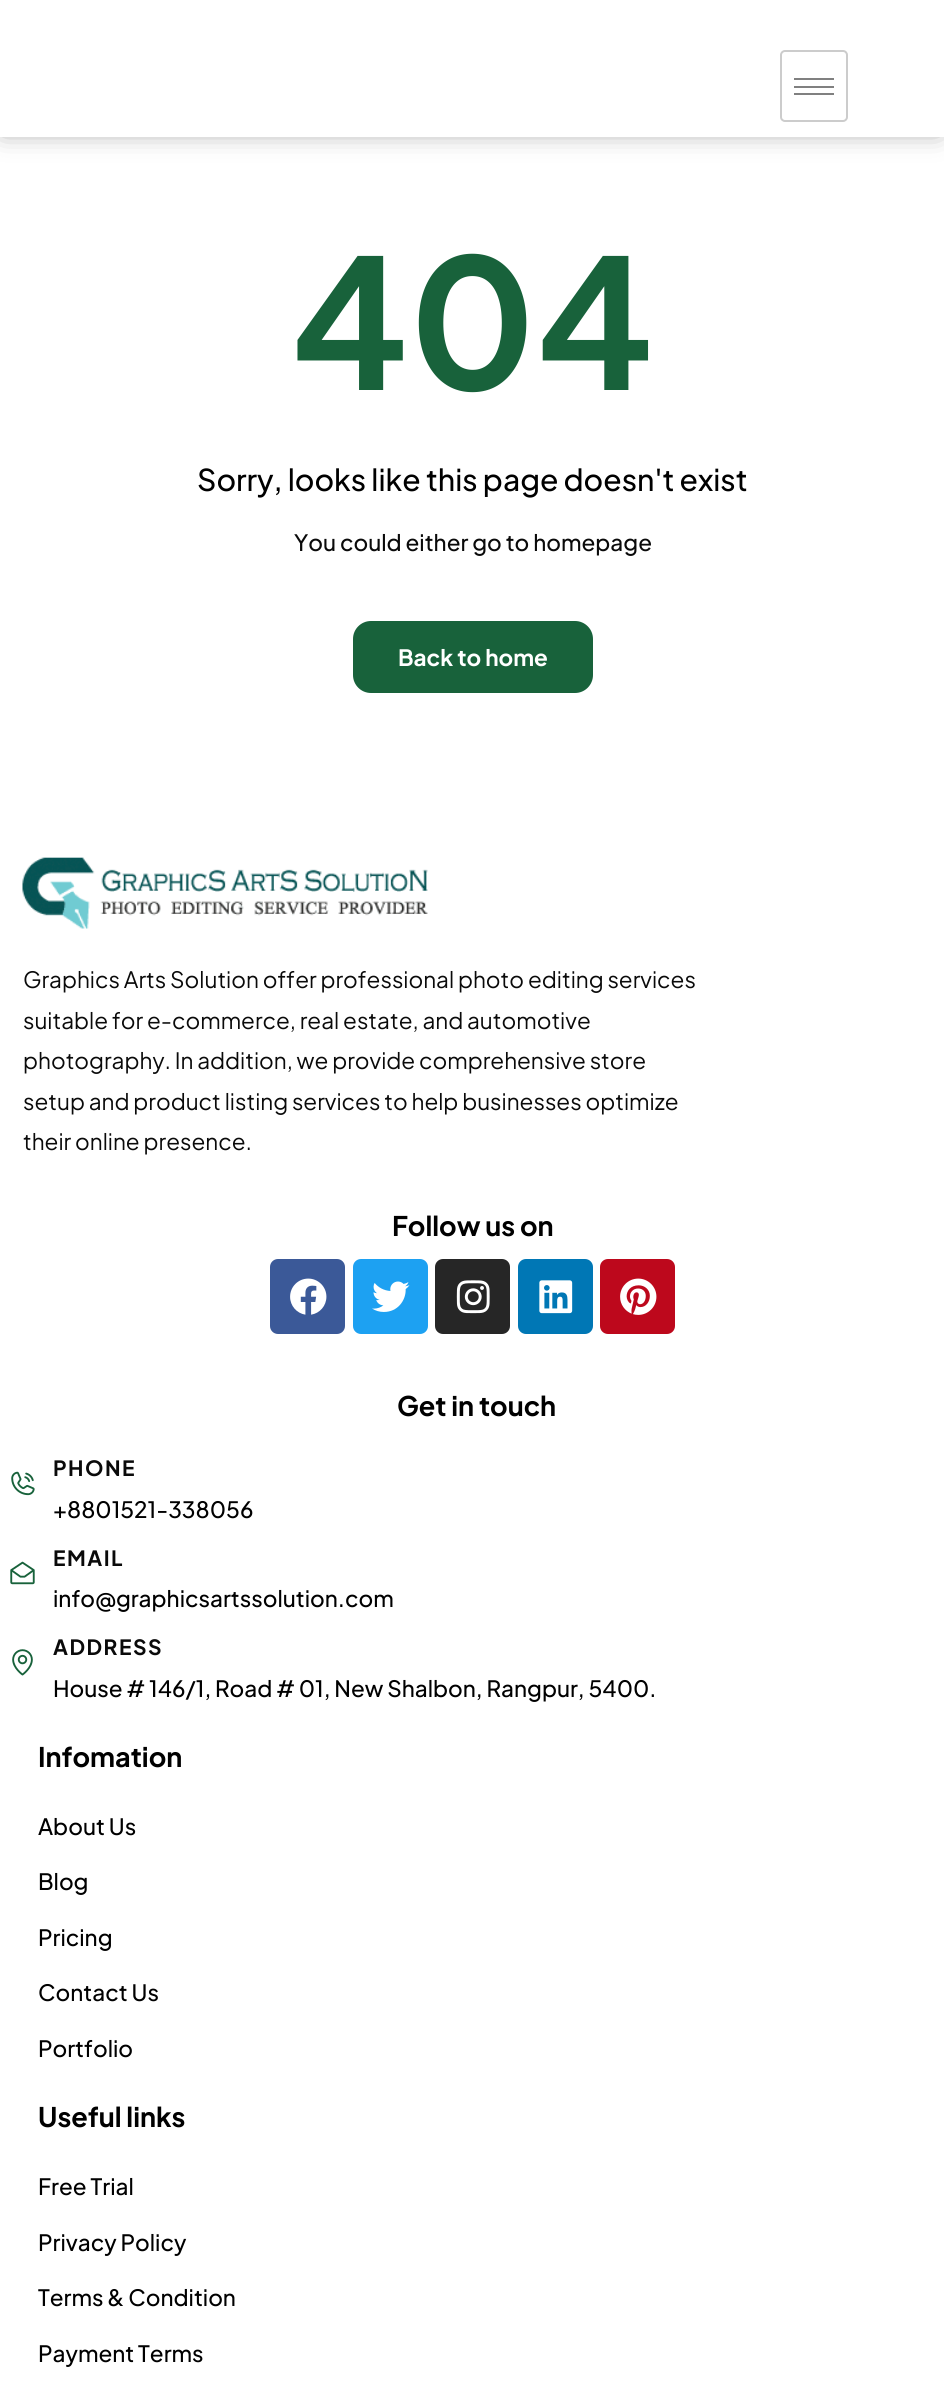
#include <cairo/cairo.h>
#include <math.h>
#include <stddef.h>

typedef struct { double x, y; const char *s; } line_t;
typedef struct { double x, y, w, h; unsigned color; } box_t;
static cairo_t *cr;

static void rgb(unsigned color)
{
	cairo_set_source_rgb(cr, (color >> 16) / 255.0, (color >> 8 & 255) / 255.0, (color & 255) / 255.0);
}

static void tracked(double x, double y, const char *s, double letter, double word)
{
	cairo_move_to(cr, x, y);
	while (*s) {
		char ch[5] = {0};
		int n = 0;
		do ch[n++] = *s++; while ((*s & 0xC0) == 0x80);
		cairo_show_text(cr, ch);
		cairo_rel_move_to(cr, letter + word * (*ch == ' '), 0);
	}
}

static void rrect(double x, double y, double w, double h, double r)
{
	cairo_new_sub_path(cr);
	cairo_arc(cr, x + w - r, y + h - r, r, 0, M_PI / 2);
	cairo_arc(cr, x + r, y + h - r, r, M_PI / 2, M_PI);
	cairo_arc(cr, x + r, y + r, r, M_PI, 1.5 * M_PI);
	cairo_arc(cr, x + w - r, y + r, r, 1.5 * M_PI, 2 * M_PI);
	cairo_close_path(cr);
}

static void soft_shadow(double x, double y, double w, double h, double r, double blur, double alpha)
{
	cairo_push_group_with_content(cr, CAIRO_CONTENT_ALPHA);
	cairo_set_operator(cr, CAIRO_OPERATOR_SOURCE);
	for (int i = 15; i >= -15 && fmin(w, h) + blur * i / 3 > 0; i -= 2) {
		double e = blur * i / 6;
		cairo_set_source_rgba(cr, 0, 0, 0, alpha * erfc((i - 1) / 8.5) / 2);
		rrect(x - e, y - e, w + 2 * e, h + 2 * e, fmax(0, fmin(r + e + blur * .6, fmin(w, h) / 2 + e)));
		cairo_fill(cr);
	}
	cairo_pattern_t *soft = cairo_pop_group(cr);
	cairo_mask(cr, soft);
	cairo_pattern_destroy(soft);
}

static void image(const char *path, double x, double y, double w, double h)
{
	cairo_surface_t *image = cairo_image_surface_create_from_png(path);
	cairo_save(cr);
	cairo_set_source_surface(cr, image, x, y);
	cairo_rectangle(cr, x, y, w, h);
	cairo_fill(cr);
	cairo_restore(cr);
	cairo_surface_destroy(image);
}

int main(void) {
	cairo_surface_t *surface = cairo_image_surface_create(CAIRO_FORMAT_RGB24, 944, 2396);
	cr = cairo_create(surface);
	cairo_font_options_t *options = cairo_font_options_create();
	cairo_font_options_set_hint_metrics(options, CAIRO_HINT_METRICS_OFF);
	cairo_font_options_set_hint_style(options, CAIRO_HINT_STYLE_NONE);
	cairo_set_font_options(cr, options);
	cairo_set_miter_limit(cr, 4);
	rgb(0xffffff);
	cairo_paint(cr);
	rgb(0x000000);
	soft_shadow(3, 0, 936, 128, 0, 14, 0.5);
	rgb(0xffffff);
	cairo_rectangle(cr, 0, 0, 944, 137);
	cairo_fill(cr);
	rrect(781, 51, 66, 70, 4);
	rgb(0xcccccc);
	cairo_stroke(cr);
	{
		static const box_t items[] = {
			{794, 78, 40, 2, 0x808080},
			{794, 86, 40, 2, 0x808080},
			{794, 93, 40, 2, 0x808080},
		};
		for (size_t i = 0; i < sizeof items / sizeof *items; i++) {
			rgb(items[i].color);
			cairo_rectangle(cr, items[i].x, items[i].y, items[i].w, items[i].h);
			cairo_fill(cr);
		}
	}
	rgb(0x18623b);
	rrect(353, 621, 240, 72, 18);
	cairo_fill(cr);
	image("img/1.png", 22, 857, 406, 72);
	rgb(0x3b5998);
	rrect(270, 1259, 75, 75, 8);
	cairo_fill(cr);
	image("img/2.png", 290, 1278, 37, 37);
	rgb(0x1da1f2);
	rrect(353, 1259, 75, 75, 8);
	cairo_fill(cr);
	image("img/3.png", 372, 1281, 38, 31);
	rgb(0x262626);
	rrect(435, 1259, 75, 75, 8);
	cairo_fill(cr);
	image("img/4.png", 456, 1280, 34, 34);
	rgb(0x0077b5);
	rrect(518, 1259, 75, 75, 8);
	cairo_fill(cr);
	image("img/5.png", 539, 1280, 34, 34);
	rgb(0xbd081c);
	rrect(600, 1259, 75, 75, 8);
	cairo_fill(cr);
	image("img/6.png", 620, 1278, 37, 37);
	image("img/7.png", 11, 1471, 24, 25);
	image("img/8.png", 10, 1561, 25, 24);
	image("img/9.png", 12, 1649, 21, 27);
	cairo_select_font_face(cr, "Plus Jakarta Sans", CAIRO_FONT_SLANT_NORMAL, CAIRO_FONT_WEIGHT_BOLD);
	cairo_set_font_size(cr, 180);
	rgb(0x18623b);
	cairo_move_to(cr, 291, 390);
	cairo_show_text(cr, "404");
	cairo_select_font_face(cr, "Plus Jakarta Sans Medium", CAIRO_FONT_SLANT_NORMAL, CAIRO_FONT_WEIGHT_NORMAL);
	cairo_set_font_size(cr, 30);
	rgb(0x000000);
	cairo_move_to(cr, 197, 491);
	cairo_show_text(cr, "Sorry, looks like this page doesn't exist");
	cairo_set_font_size(cr, 22.5);
	rgb(0x0a0a0a);
	cairo_move_to(cr, 294, 551);
	cairo_show_text(cr, "You could either go to homepage");
	cairo_select_font_face(cr, "Plus Jakarta Sans", CAIRO_FONT_SLANT_NORMAL, CAIRO_FONT_WEIGHT_BOLD);
	rgb(0xffffff);
	cairo_move_to(cr, 398, 666);
	cairo_show_text(cr, "Back to home");
	cairo_select_font_face(cr, "Plus Jakarta Sans", CAIRO_FONT_SLANT_NORMAL, CAIRO_FONT_WEIGHT_NORMAL);
	rgb(0x0a0a0a);
	{
		static const line_t items[] = {
			{23, 988, "Graphics Arts Solution offer professional photo editing services"},
			{23, 1029, "suitable for e-commerce, real estate, and automotive"},
			{23, 1069, "photography. In addition, we provide comprehensive store"},
			{23, 1110, "setup and product listing services to help businesses optimize"},
			{23, 1150, "their online presence."},
		};
		for (size_t i = 0; i < sizeof items / sizeof *items; i++) {
			cairo_move_to(cr, items[i].x, items[i].y);
			cairo_show_text(cr, items[i].s);
		}
	}
	cairo_select_font_face(cr, "Plus Jakarta Sans", CAIRO_FONT_SLANT_NORMAL, CAIRO_FONT_WEIGHT_BOLD);
	cairo_set_font_size(cr, 27);
	rgb(0x000000);
	cairo_move_to(cr, 392, 1236);
	cairo_show_text(cr, "Follow us on");
	cairo_move_to(cr, 397, 1416);
	cairo_show_text(cr, "Get in touch");
	cairo_set_font_size(cr, 21);
	rgb(0x0a0a0a);
	tracked(53, 1476, "PHONE", 1.5, 0);
	cairo_select_font_face(cr, "Plus Jakarta Sans Medium", CAIRO_FONT_SLANT_NORMAL, CAIRO_FONT_WEIGHT_NORMAL);
	cairo_set_font_size(cr, 22.5);
	rgb(0x000000);
	cairo_move_to(cr, 53, 1518);
	cairo_show_text(cr, "+8801521-338056");
	cairo_select_font_face(cr, "Plus Jakarta Sans", CAIRO_FONT_SLANT_NORMAL, CAIRO_FONT_WEIGHT_BOLD);
	cairo_set_font_size(cr, 21);
	rgb(0x0a0a0a);
	tracked(53, 1566, "EMAIL", 1.5, 0);
	cairo_select_font_face(cr, "Plus Jakarta Sans Medium", CAIRO_FONT_SLANT_NORMAL, CAIRO_FONT_WEIGHT_NORMAL);
	cairo_set_font_size(cr, 22.5);
	rgb(0x000000);
	cairo_move_to(cr, 53, 1607);
	cairo_show_text(cr, "info@graphicsartssolution.com");
	cairo_select_font_face(cr, "Plus Jakarta Sans", CAIRO_FONT_SLANT_NORMAL, CAIRO_FONT_WEIGHT_BOLD);
	cairo_set_font_size(cr, 21);
	rgb(0x0a0a0a);
	tracked(53, 1655, "ADDRESS", 1.5, 0);
	cairo_select_font_face(cr, "Plus Jakarta Sans Medium", CAIRO_FONT_SLANT_NORMAL, CAIRO_FONT_WEIGHT_NORMAL);
	cairo_set_font_size(cr, 22.5);
	rgb(0x000000);
	cairo_move_to(cr, 53, 1697);
	cairo_show_text(cr, "House # 146/1, Road # 01, New Shalbon, Rangpur, 5400.");
	cairo_select_font_face(cr, "Plus Jakarta Sans", CAIRO_FONT_SLANT_NORMAL, CAIRO_FONT_WEIGHT_BOLD);
	cairo_set_font_size(cr, 27);
	cairo_move_to(cr, 38, 1767);
	cairo_show_text(cr, "Infomation");
	cairo_select_font_face(cr, "Plus Jakarta Sans Medium", CAIRO_FONT_SLANT_NORMAL, CAIRO_FONT_WEIGHT_NORMAL);
	cairo_set_font_size(cr, 22.5);
	{
		static const line_t items[] = {
			{38, 1835, "About Us"},
			{38, 1890, "Blog"},
			{38, 1946, "Pricing"},
			{38, 2001, "Contact Us"},
			{38, 2057, "Portfolio"},
		};
		for (size_t i = 0; i < sizeof items / sizeof *items; i++) {
			cairo_move_to(cr, items[i].x, items[i].y);
			cairo_show_text(cr, items[i].s);
		}
	}
	cairo_select_font_face(cr, "Plus Jakarta Sans", CAIRO_FONT_SLANT_NORMAL, CAIRO_FONT_WEIGHT_BOLD);
	cairo_set_font_size(cr, 27);
	cairo_move_to(cr, 38, 2127);
	cairo_show_text(cr, "Useful links");
	cairo_select_font_face(cr, "Plus Jakarta Sans Medium", CAIRO_FONT_SLANT_NORMAL, CAIRO_FONT_WEIGHT_NORMAL);
	cairo_set_font_size(cr, 22.5);
	{
		static const line_t items[] = {
			{38, 2195, "Free Trial"},
			{38, 2251, "Privacy Policy"},
			{38, 2306, "Terms & Condition"},
			{38, 2362, "Payment Terms"},
		};
		for (size_t i = 0; i < sizeof items / sizeof *items; i++) {
			cairo_move_to(cr, items[i].x, items[i].y);
			cairo_show_text(cr, items[i].s);
		}
	}
	cairo_surface_write_to_png(surface, "page.png");
	cairo_font_options_destroy(options);
	cairo_destroy(cr);
	cairo_surface_destroy(surface);
	return 0;
}
